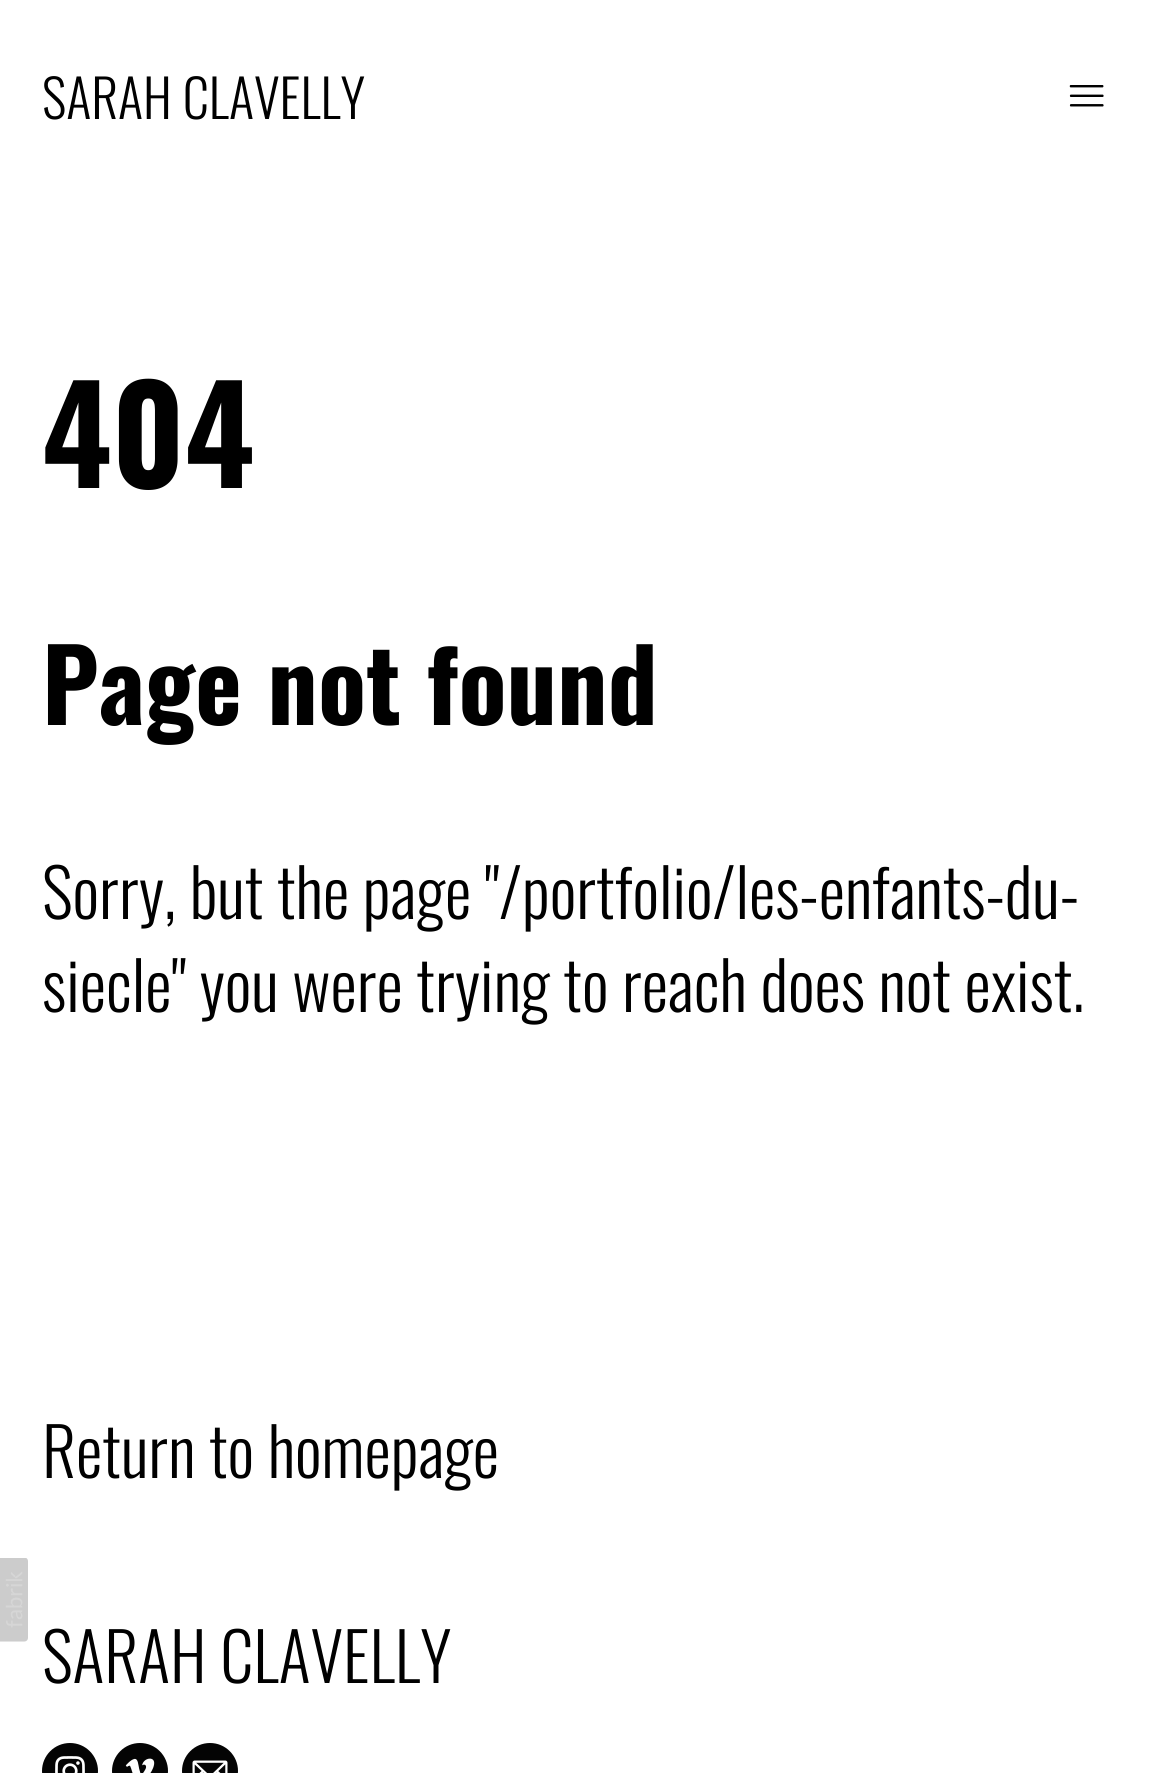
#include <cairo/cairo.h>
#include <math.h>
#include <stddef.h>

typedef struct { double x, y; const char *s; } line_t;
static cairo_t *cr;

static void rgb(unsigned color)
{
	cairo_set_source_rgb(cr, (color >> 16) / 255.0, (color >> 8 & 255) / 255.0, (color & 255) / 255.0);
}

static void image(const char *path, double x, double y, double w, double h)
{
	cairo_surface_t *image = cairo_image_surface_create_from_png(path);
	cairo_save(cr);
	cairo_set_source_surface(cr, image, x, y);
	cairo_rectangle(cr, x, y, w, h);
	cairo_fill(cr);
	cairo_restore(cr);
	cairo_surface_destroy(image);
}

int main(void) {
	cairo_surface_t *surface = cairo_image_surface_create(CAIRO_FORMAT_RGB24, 1157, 1773);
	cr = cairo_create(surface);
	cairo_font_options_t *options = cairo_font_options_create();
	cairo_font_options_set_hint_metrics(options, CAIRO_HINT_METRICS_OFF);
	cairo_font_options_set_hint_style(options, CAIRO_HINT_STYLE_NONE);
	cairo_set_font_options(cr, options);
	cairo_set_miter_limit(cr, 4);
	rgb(0xffffff);
	cairo_paint(cr);
	image("img/1.png", 1069, 85, 35, 22);
	image("img/2.png", 0, 1558, 28, 84);
	image("img/3.png", 42, 1743, 56, 30);
	image("img/4.png", 112, 1743, 56, 30);
	image("img/5.png", 182, 1743, 56, 30);
	cairo_select_font_face(cr, "Oswald Light", CAIRO_FONT_SLANT_NORMAL, CAIRO_FONT_WEIGHT_NORMAL);
	cairo_set_font_size(cr, 52.5);
	rgb(0x000000);
	cairo_move_to(cr, 42, 119);
	cairo_show_text(cr, "SARAH CLAVELLY");
	cairo_select_font_face(cr, "Oswald", CAIRO_FONT_SLANT_NORMAL, CAIRO_FONT_WEIGHT_BOLD);
	cairo_set_font_size(cr, 133);
	cairo_move_to(cr, 42, 488);
	cairo_show_text(cr, "404");
	cairo_set_font_size(cr, 99.75);
	cairo_move_to(cr, 42, 725);
	cairo_show_text(cr, "Page not found");
	cairo_select_font_face(cr, "Oswald Light", CAIRO_FONT_SLANT_NORMAL, CAIRO_FONT_WEIGHT_NORMAL);
	cairo_set_font_size(cr, 66.5);
	{
		static const line_t items[] = {
			{42, 919, "Sorry, but the page \"/portfolio/les-enfants-du-"},
			{42, 1012, "siecle\" you were trying to reach does not exist."},
			{42, 1478, "Return to homepage"},
			{42, 1683, "SARAH CLAVELLY"},
		};
		for (size_t i = 0; i < sizeof items / sizeof *items; i++) {
			cairo_move_to(cr, items[i].x, items[i].y);
			cairo_show_text(cr, items[i].s);
		}
	}
	cairo_surface_write_to_png(surface, "page.png");
	cairo_font_options_destroy(options);
	cairo_destroy(cr);
	cairo_surface_destroy(surface);
	return 0;
}
